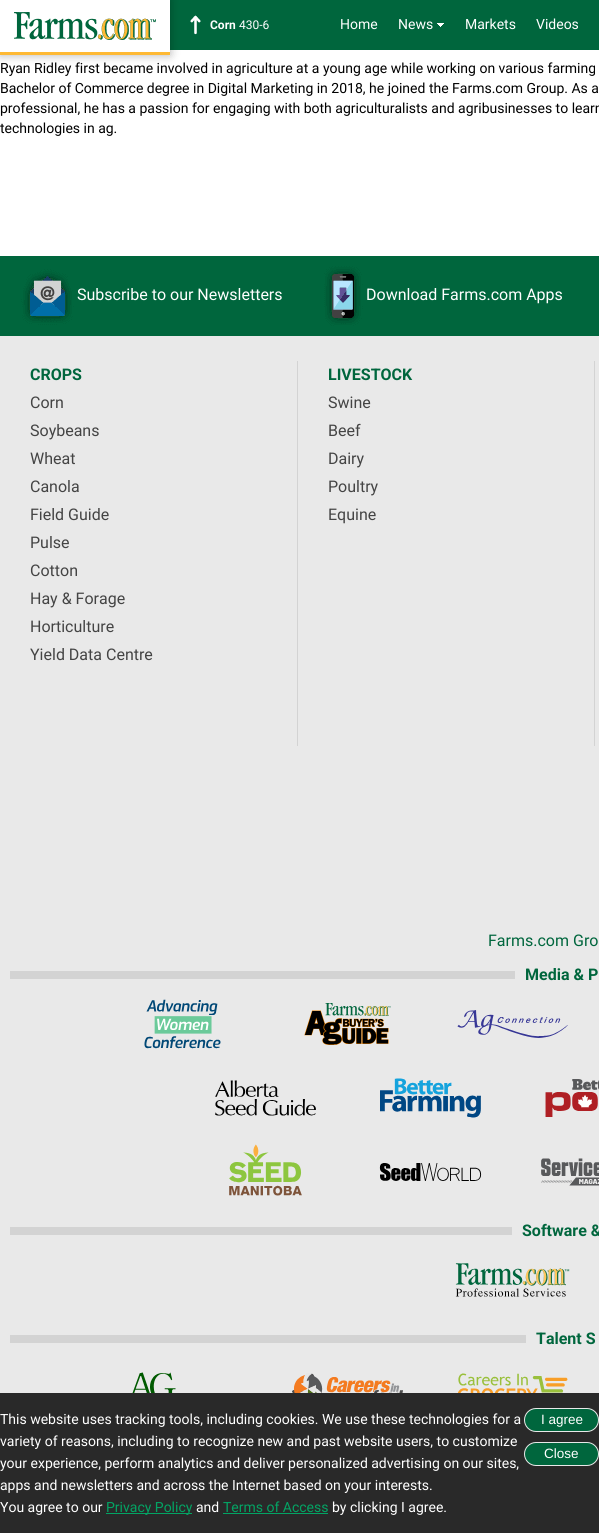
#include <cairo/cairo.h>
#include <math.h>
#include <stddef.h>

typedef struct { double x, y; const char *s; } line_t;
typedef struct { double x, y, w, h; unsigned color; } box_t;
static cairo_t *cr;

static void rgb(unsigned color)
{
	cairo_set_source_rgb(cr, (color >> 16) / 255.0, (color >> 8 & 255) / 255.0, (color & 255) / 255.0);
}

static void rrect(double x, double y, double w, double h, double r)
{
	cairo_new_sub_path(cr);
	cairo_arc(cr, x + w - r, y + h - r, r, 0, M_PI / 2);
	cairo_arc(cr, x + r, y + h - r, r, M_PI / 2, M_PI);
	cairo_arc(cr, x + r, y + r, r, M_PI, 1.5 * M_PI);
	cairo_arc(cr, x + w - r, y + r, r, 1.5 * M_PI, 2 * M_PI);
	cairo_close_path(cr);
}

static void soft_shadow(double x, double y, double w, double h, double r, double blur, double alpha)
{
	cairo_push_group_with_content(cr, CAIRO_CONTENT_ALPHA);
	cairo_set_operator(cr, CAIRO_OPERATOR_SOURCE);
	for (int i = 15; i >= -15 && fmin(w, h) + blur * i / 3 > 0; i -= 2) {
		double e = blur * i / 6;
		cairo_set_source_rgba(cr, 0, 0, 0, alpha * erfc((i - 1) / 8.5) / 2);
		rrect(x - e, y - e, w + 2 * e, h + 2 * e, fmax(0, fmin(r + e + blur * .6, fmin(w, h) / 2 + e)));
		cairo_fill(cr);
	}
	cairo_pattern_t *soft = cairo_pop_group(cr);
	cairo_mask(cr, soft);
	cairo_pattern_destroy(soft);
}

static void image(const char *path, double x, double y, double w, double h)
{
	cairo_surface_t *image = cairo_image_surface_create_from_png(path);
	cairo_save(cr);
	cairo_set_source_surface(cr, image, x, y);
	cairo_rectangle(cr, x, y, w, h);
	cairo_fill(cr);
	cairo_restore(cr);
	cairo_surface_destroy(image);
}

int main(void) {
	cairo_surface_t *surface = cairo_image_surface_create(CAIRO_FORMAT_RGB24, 599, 1533);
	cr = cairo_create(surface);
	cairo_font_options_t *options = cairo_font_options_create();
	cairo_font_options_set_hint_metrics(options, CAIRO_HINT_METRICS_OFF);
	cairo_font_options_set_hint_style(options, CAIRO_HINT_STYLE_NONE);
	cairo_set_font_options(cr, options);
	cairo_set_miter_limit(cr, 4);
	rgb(0xffffff);
	cairo_paint(cr);
	rgb(0x00663d);
	cairo_rectangle(cr, 170, 0, 429, 50);
	cairo_fill(cr);
	rgb(0x000000);
	soft_shadow(0, 0, 170, 55, 0, 5, 0.3);
	rgb(0xffffff);
	cairo_rectangle(cr, 0, 0, 170, 52);
	cairo_fill(cr);
	image("img/1.png", 14, 12, 142, 28);
	rgb(0xfeb934);
	cairo_rectangle(cr, 0, 52, 170, 3);
	cairo_fill(cr);
	image("img/2.png", 190, 15, 11, 20);
	image("img/3.png", 437, 23, 7, 4);
	rgb(0x00663d);
	cairo_rectangle(cr, 0, 256, 599, 80);
	cairo_fill(cr);
	image("img/4.png", 21, 269, 53, 56);
	image("img/5.png", 324, 266, 39, 60);
	{
		static const box_t items[] = {
			{0, 336, 599, 1057, 0xe9e9e9},
			{297, 361, 1, 385, 0xd3d3d3},
			{594, 361, 1, 385, 0xd3d3d3},
			{10, 971, 505, 8, 0xd3d3d3},
		};
		for (size_t i = 0; i < sizeof items / sizeof *items; i++) {
			rgb(items[i].color);
			cairo_rectangle(cr, items[i].x, items[i].y, items[i].w, items[i].h);
			cairo_fill(cr);
		}
	}
	image("img/6.png", 144, 999, 77, 50);
	image("img/7.png", 304, 1003, 87, 42);
	image("img/8.png", 457, 1010, 111, 28);
	image("img/9.png", 215, 1080, 101, 36);
	image("img/10.png", 380, 1078, 101, 40);
	image("img/11.png", 545, 1079, 54, 38);
	image("img/12.png", 229, 1144, 73, 52);
	image("img/13.png", 379, 1163, 103, 18);
	image("img/14.png", 541, 1158, 58, 28);
	cairo_rectangle(cr, 10, 1227, 502, 8);
	cairo_fill(cr);
	image("img/15.png", 455, 1263, 115, 34);
	cairo_rectangle(cr, 10, 1335, 516, 8);
	cairo_fill(cr);
	image("img/16.png", 132, 1372, 44, 21);
	image("img/17.png", 292, 1373, 111, 20);
	image("img/18.png", 457, 1373, 111, 20);
	{
		static const box_t items[] = {
			{0, 1393, 599, 140, 0x292929},
			{106, 1513, 86, 1, 0x03a464},
			{223, 1513, 105, 1, 0x03a464},
		};
		for (size_t i = 0; i < sizeof items / sizeof *items; i++) {
			rgb(items[i].color);
			cairo_rectangle(cr, items[i].x, items[i].y, items[i].w, items[i].h);
			cairo_fill(cr);
		}
	}
	rgb(0x00663d);
	rrect(524.5, 1408.5, 74, 23, 11.5);
	cairo_fill_preserve(cr);
	rgb(0xe9e9e9);
	cairo_set_line_width(cr, 1);
	cairo_stroke(cr);
	rgb(0x00663d);
	rrect(524.5, 1442.5, 74, 23, 11.5);
	cairo_fill_preserve(cr);
	rgb(0xe9e9e9);
	cairo_stroke(cr);
	cairo_select_font_face(cr, "Roboto", CAIRO_FONT_SLANT_NORMAL, CAIRO_FONT_WEIGHT_BOLD);
	cairo_set_font_size(cr, 12);
	rgb(0xffffff);
	cairo_move_to(cr, 210, 29);
	cairo_show_text(cr, "Corn");
	cairo_select_font_face(cr, "Roboto", CAIRO_FONT_SLANT_NORMAL, CAIRO_FONT_WEIGHT_NORMAL);
	cairo_move_to(cr, 239, 29);
	cairo_show_text(cr, "430-6");
	cairo_set_font_size(cr, 14);
	{
		static const line_t items[] = {
			{340, 29, "Home"},
			{398, 29, "News"},
			{465, 29, "Markets"},
			{536, 29, "Videos"},
		};
		for (size_t i = 0; i < sizeof items / sizeof *items; i++) {
			cairo_move_to(cr, items[i].x, items[i].y);
			cairo_show_text(cr, items[i].s);
		}
	}
	rgb(0x000000);
	{
		static const line_t items[] = {
			{0, 73, "Ryan Ridley first became involved in agriculture at a young age while working on various farming"},
			{0, 93, "Bachelor of Commerce degree in Digital Marketing in 2018, he joined the Farms.com Group. As a"},
			{0, 113, "professional, he has a passion for engaging with both agriculturalists and agribusinesses to learn"},
			{0, 133, "technologies in ag."},
		};
		for (size_t i = 0; i < sizeof items / sizeof *items; i++) {
			cairo_move_to(cr, items[i].x, items[i].y);
			cairo_show_text(cr, items[i].s);
		}
	}
	cairo_set_font_size(cr, 16);
	rgb(0xffffff);
	cairo_move_to(cr, 77, 300);
	cairo_show_text(cr, "Subscribe to our Newsletters");
	cairo_move_to(cr, 366, 300);
	cairo_show_text(cr, "Download Farms.com Apps");
	cairo_select_font_face(cr, "Roboto", CAIRO_FONT_SLANT_NORMAL, CAIRO_FONT_WEIGHT_BOLD);
	rgb(0x00663d);
	cairo_move_to(cr, 30, 380);
	cairo_show_text(cr, "CROPS");
	cairo_select_font_face(cr, "Roboto", CAIRO_FONT_SLANT_NORMAL, CAIRO_FONT_WEIGHT_NORMAL);
	rgb(0x444444);
	{
		static const line_t items[] = {
			{30, 408, "Corn"},
			{30, 436, "Soybeans"},
			{30, 464, "Wheat"},
			{30, 492, "Canola"},
			{30, 520, "Field Guide"},
			{30, 548, "Pulse"},
			{30, 576, "Cotton"},
			{30, 604, "Hay & Forage"},
			{30, 632, "Horticulture"},
			{30, 660, "Yield Data Centre"},
		};
		for (size_t i = 0; i < sizeof items / sizeof *items; i++) {
			cairo_move_to(cr, items[i].x, items[i].y);
			cairo_show_text(cr, items[i].s);
		}
	}
	cairo_select_font_face(cr, "Roboto", CAIRO_FONT_SLANT_NORMAL, CAIRO_FONT_WEIGHT_BOLD);
	rgb(0x00663d);
	cairo_move_to(cr, 328, 380);
	cairo_show_text(cr, "LIVESTOCK");
	cairo_select_font_face(cr, "Roboto", CAIRO_FONT_SLANT_NORMAL, CAIRO_FONT_WEIGHT_NORMAL);
	rgb(0x444444);
	{
		static const line_t items[] = {
			{328, 408, "Swine"},
			{328, 436, "Beef"},
			{328, 464, "Dairy"},
			{328, 492, "Poultry"},
			{328, 520, "Equine"},
		};
		for (size_t i = 0; i < sizeof items / sizeof *items; i++) {
			cairo_move_to(cr, items[i].x, items[i].y);
			cairo_show_text(cr, items[i].s);
		}
	}
	rgb(0x00663d);
	cairo_move_to(cr, 488, 946);
	cairo_show_text(cr, "Farms.com Gro");
	cairo_select_font_face(cr, "Roboto", CAIRO_FONT_SLANT_NORMAL, CAIRO_FONT_WEIGHT_BOLD);
	{
		static const line_t items[] = {
			{525, 980, "Media & P"},
			{522, 1236, "Software &"},
			{536, 1344, "Talent S"},
		};
		for (size_t i = 0; i < sizeof items / sizeof *items; i++) {
			cairo_move_to(cr, items[i].x, items[i].y);
			cairo_show_text(cr, items[i].s);
		}
	}
	cairo_select_font_face(cr, "Roboto", CAIRO_FONT_SLANT_NORMAL, CAIRO_FONT_WEIGHT_NORMAL);
	cairo_set_font_size(cr, 14);
	rgb(0xffffff);
	{
		static const line_t items[] = {
			{0, 1424, "This website uses tracking tools, including cookies. We use these technologies for a"},
			{0, 1446, "variety of reasons, including to recognize new and past website users, to customize"},
			{0, 1468, "your experience, perform analytics and deliver personalized advertising on our sites,"},
			{0, 1490, "apps and newsletters and across the Internet based on your interests."},
			{0, 1512, "You agree to our"},
		};
		for (size_t i = 0; i < sizeof items / sizeof *items; i++) {
			cairo_move_to(cr, items[i].x, items[i].y);
			cairo_show_text(cr, items[i].s);
		}
	}
	rgb(0x03a464);
	cairo_move_to(cr, 106, 1512);
	cairo_show_text(cr, "Privacy Policy");
	rgb(0xffffff);
	cairo_move_to(cr, 196, 1512);
	cairo_show_text(cr, "and");
	rgb(0x03a464);
	cairo_move_to(cr, 223, 1512);
	cairo_show_text(cr, "Terms of Access");
	rgb(0xffffff);
	cairo_move_to(cr, 332, 1512);
	cairo_show_text(cr, "by clicking I agree.");
	cairo_select_font_face(cr, "Liberation Sans", CAIRO_FONT_SLANT_NORMAL, CAIRO_FONT_WEIGHT_NORMAL);
	cairo_set_font_size(cr, 13.5);
	cairo_move_to(cr, 541, 1424);
	cairo_show_text(cr, "I agree");
	cairo_move_to(cr, 544, 1458);
	cairo_show_text(cr, "Close");
	cairo_surface_write_to_png(surface, "page.png");
	cairo_font_options_destroy(options);
	cairo_destroy(cr);
	cairo_surface_destroy(surface);
	return 0;
}
